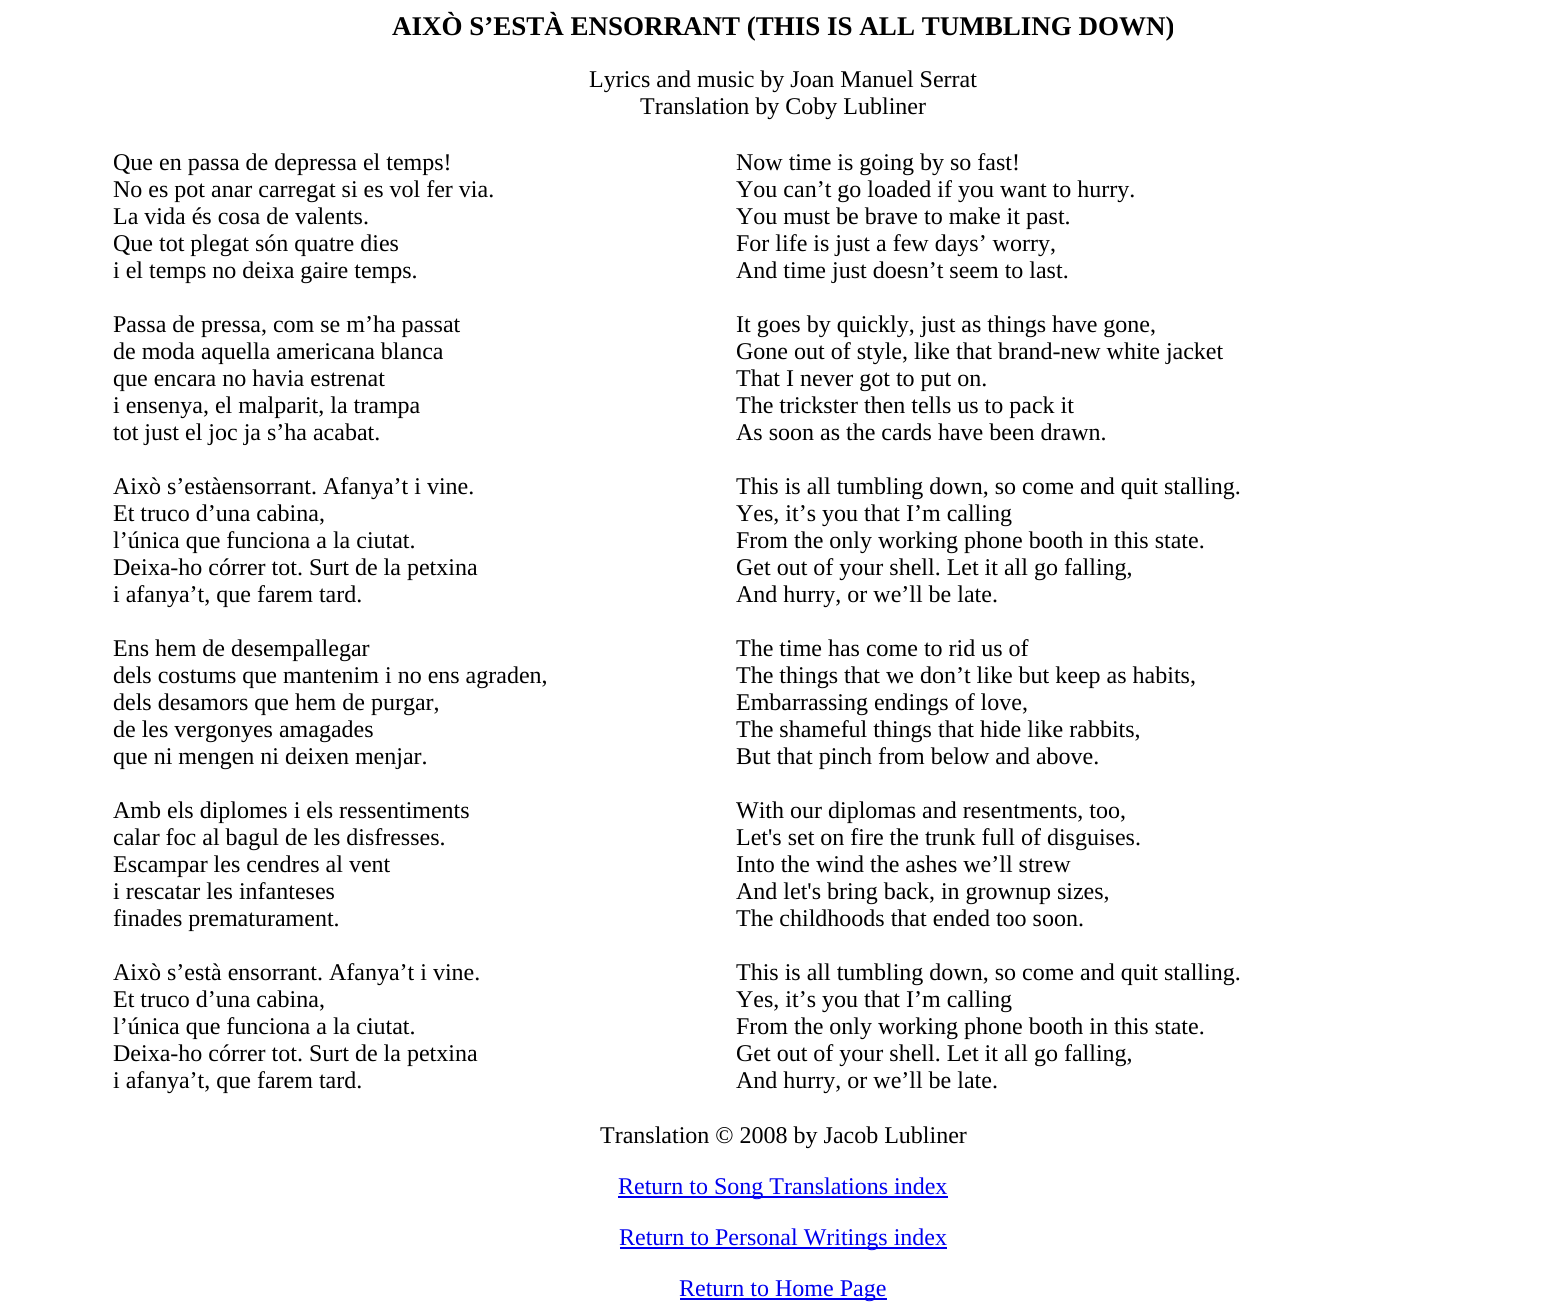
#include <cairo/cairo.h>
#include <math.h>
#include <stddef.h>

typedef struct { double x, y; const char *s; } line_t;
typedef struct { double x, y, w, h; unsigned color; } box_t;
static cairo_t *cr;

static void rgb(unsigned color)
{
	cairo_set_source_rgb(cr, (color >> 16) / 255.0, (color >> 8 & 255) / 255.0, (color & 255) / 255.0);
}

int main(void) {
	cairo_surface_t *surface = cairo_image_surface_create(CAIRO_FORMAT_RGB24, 1566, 1313);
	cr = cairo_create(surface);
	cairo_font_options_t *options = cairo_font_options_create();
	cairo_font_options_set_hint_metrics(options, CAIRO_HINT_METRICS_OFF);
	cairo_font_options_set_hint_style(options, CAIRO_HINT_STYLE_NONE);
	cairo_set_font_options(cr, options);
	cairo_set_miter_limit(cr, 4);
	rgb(0xffffff);
	cairo_paint(cr);
	{
		static const box_t items[] = {
			{618, 1196, 330, 2, 0x0000ee},
			{620, 1247, 327, 2, 0x0000ee},
			{680, 1298, 207, 2, 0x0000ee},
		};
		for (size_t i = 0; i < sizeof items / sizeof *items; i++) {
			rgb(items[i].color);
			cairo_rectangle(cr, items[i].x, items[i].y, items[i].w, items[i].h);
			cairo_fill(cr);
		}
	}
	cairo_select_font_face(cr, "Liberation Serif", CAIRO_FONT_SLANT_NORMAL, CAIRO_FONT_WEIGHT_BOLD);
	cairo_set_font_size(cr, 27);
	rgb(0x000000);
	cairo_move_to(cr, 392, 35);
	cairo_show_text(cr, "AIXÒ S’ESTÀ ENSORRANT (THIS IS ALL TUMBLING DOWN)");
	cairo_select_font_face(cr, "Liberation Serif", CAIRO_FONT_SLANT_NORMAL, CAIRO_FONT_WEIGHT_NORMAL);
	cairo_set_font_size(cr, 24);
	{
		static const line_t items[] = {
			{589, 87, "Lyrics and music by Joan Manuel Serrat"},
			{640, 114, "Translation by Coby Lubliner"},
			{113, 170, "Que en passa de depressa el temps!"},
			{113, 197, "No es pot anar carregat si es vol fer via."},
			{113, 224, "La vida és cosa de valents."},
			{113, 251, "Que tot plegat són quatre dies"},
			{113, 278, "i el temps no deixa gaire temps."},
			{113, 332, "Passa de pressa, com se m’ha passat"},
			{113, 359, "de moda aquella americana blanca"},
			{113, 386, "que encara no havia estrenat"},
			{113, 413, "i ensenya, el malparit, la trampa"},
			{113, 440, "tot just el joc ja s’ha acabat."},
			{113, 494, "Això s’estàensorrant. Afanya’t i vine."},
			{113, 521, "Et truco d’una cabina,"},
			{113, 548, "l’única que funciona a la ciutat."},
			{113, 575, "Deixa-ho córrer tot. Surt de la petxina"},
			{113, 602, "i afanya’t, que farem tard."},
			{113, 656, "Ens hem de desempallegar"},
			{113, 683, "dels costums que mantenim i no ens agraden,"},
			{113, 710, "dels desamors que hem de purgar,"},
			{113, 737, "de les vergonyes amagades"},
			{113, 764, "que ni mengen ni deixen menjar."},
			{113, 818, "Amb els diplomes i els ressentiments"},
			{113, 845, "calar foc al bagul de les disfresses."},
			{113, 872, "Escampar les cendres al vent"},
			{113, 899, "i rescatar les infanteses"},
			{113, 926, "finades prematurament."},
			{113, 980, "Això s’està ensorrant. Afanya’t i vine."},
			{113, 1007, "Et truco d’una cabina,"},
			{113, 1034, "l’única que funciona a la ciutat."},
			{113, 1061, "Deixa-ho córrer tot. Surt de la petxina"},
			{113, 1088, "i afanya’t, que farem tard."},
			{736, 170, "Now time is going by so fast!"},
			{736, 197, "You can’t go loaded if you want to hurry."},
			{736, 224, "You must be brave to make it past."},
			{736, 251, "For life is just a few days’ worry,"},
			{736, 278, "And time just doesn’t seem to last."},
			{736, 332, "It goes by quickly, just as things have gone,"},
			{736, 359, "Gone out of style, like that brand-new white jacket"},
			{736, 386, "That I never got to put on."},
			{736, 413, "The trickster then tells us to pack it"},
			{736, 440, "As soon as the cards have been drawn."},
			{736, 494, "This is all tumbling down, so come and quit stalling."},
			{736, 521, "Yes, it’s you that I’m calling"},
			{736, 548, "From the only working phone booth in this state."},
			{736, 575, "Get out of your shell. Let it all go falling,"},
			{736, 602, "And hurry, or we’ll be late."},
			{736, 656, "The time has come to rid us of"},
			{736, 683, "The things that we don’t like but keep as habits,"},
			{736, 710, "Embarrassing endings of love,"},
			{736, 737, "The shameful things that hide like rabbits,"},
			{736, 764, "But that pinch from below and above."},
			{736, 818, "With our diplomas and resentments, too,"},
			{736, 845, "Let's set on fire the trunk full of disguises."},
			{736, 872, "Into the wind the ashes we’ll strew"},
			{736, 899, "And let's bring back, in grownup sizes,"},
			{736, 926, "The childhoods that ended too soon."},
			{736, 980, "This is all tumbling down, so come and quit stalling."},
			{736, 1007, "Yes, it’s you that I’m calling"},
			{736, 1034, "From the only working phone booth in this state."},
			{736, 1061, "Get out of your shell. Let it all go falling,"},
			{736, 1088, "And hurry, or we’ll be late."},
			{600, 1143, "Translation © 2008 by Jacob Lubliner"},
		};
		for (size_t i = 0; i < sizeof items / sizeof *items; i++) {
			cairo_move_to(cr, items[i].x, items[i].y);
			cairo_show_text(cr, items[i].s);
		}
	}
	rgb(0x0000ee);
	{
		static const line_t items[] = {
			{618, 1194, "Return to Song Translations index"},
			{619, 1245, "Return to Personal Writings index"},
			{679, 1296, "Return to Home Page"},
		};
		for (size_t i = 0; i < sizeof items / sizeof *items; i++) {
			cairo_move_to(cr, items[i].x, items[i].y);
			cairo_show_text(cr, items[i].s);
		}
	}
	cairo_surface_write_to_png(surface, "page.png");
	cairo_font_options_destroy(options);
	cairo_destroy(cr);
	cairo_surface_destroy(surface);
	return 0;
}
